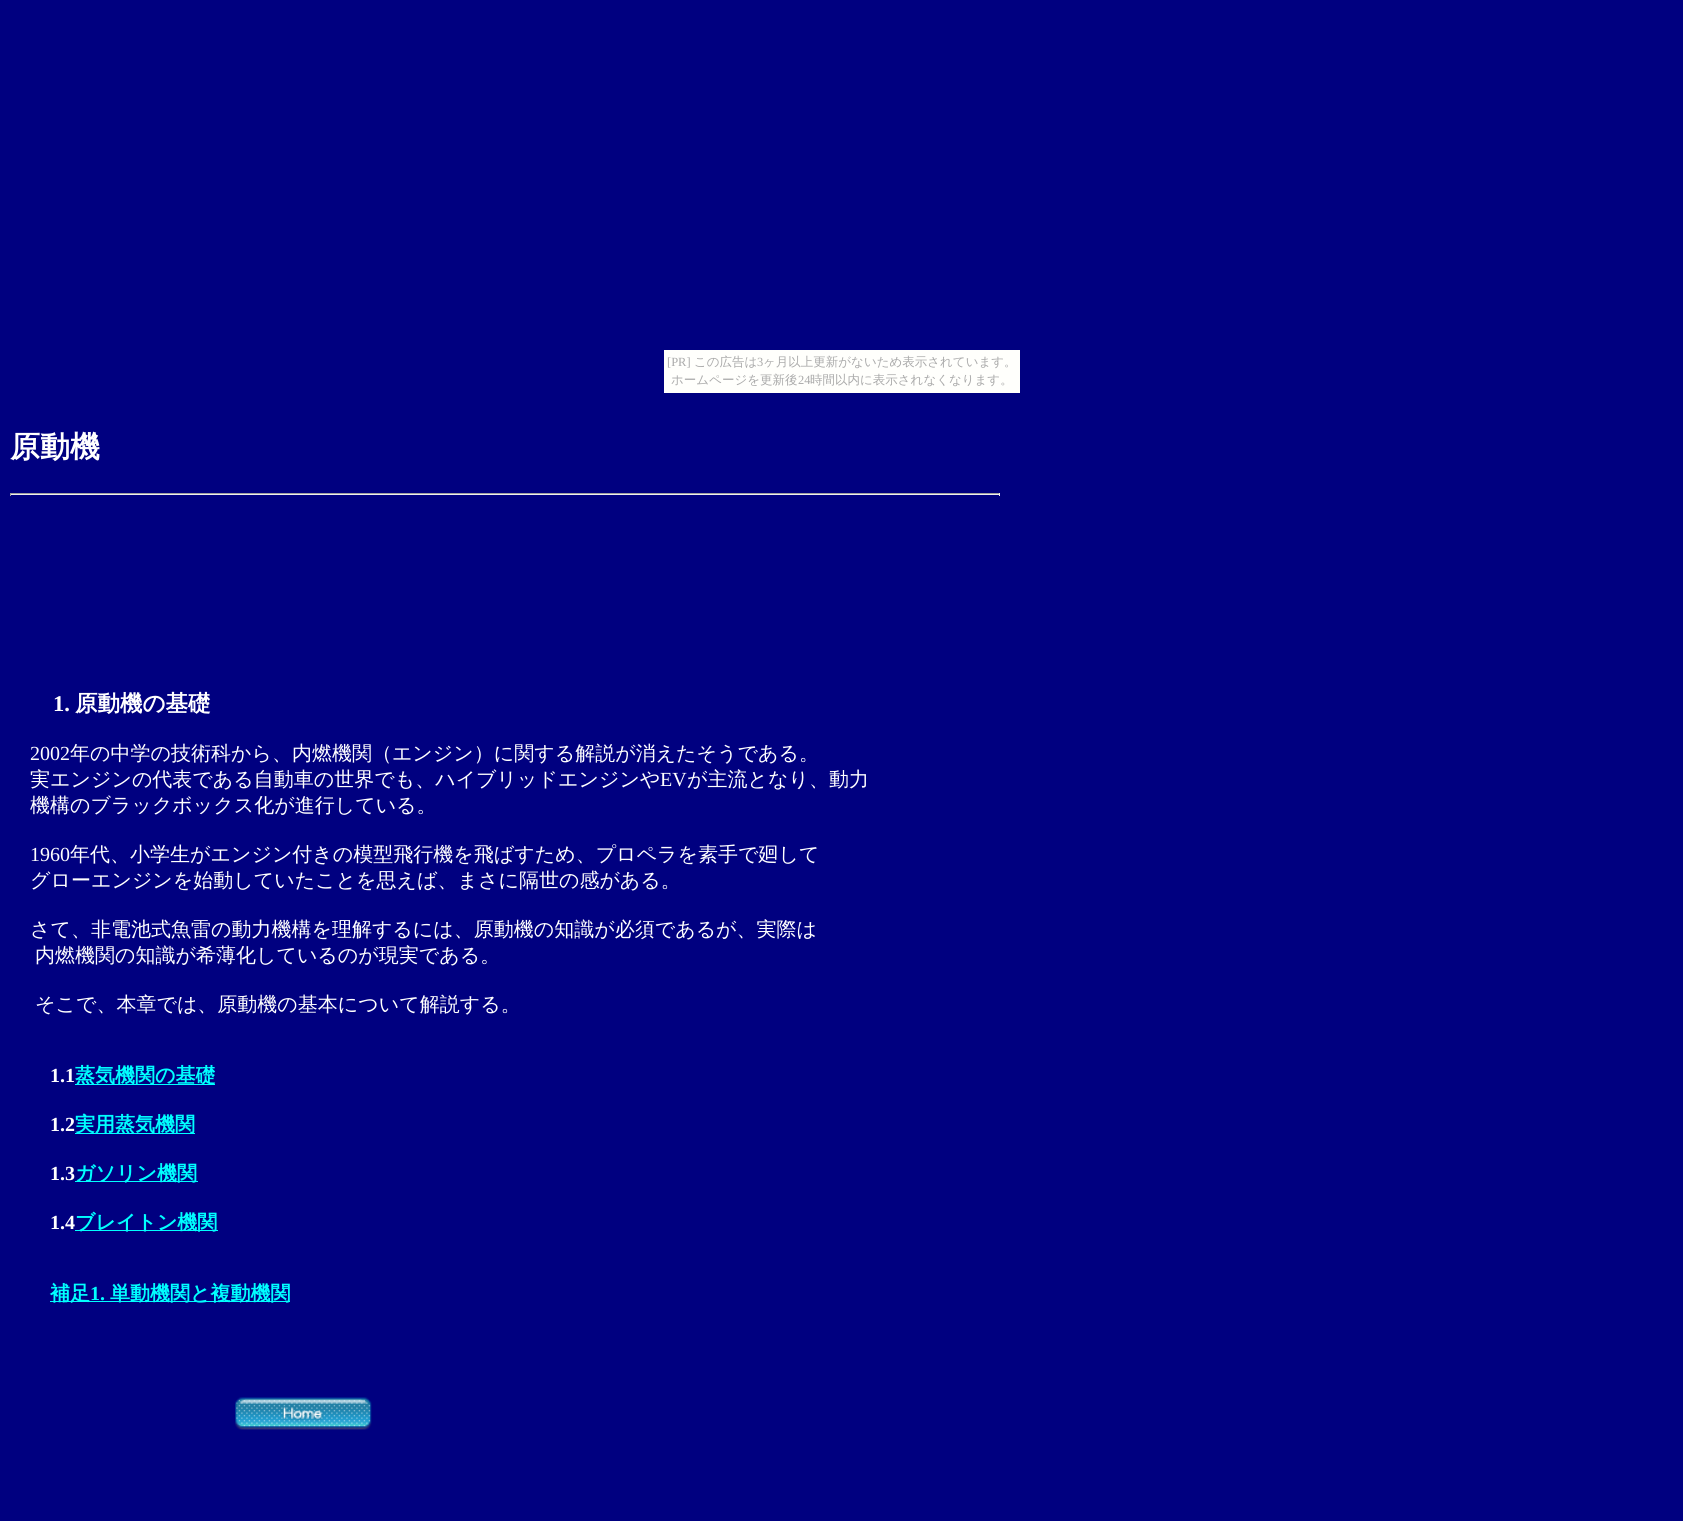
#include <cairo/cairo.h>
#include <math.h>
#include <stddef.h>

typedef struct { double x, y; const char *s; } line_t;
typedef struct { double x, y, w, h; unsigned color; } box_t;
static cairo_t *cr;

static void rgb(unsigned color)
{
	cairo_set_source_rgb(cr, (color >> 16) / 255.0, (color >> 8 & 255) / 255.0, (color & 255) / 255.0);
}

static void image(const char *path, double x, double y, double w, double h)
{
	cairo_surface_t *image = cairo_image_surface_create_from_png(path);
	cairo_save(cr);
	cairo_set_source_surface(cr, image, x, y);
	cairo_rectangle(cr, x, y, w, h);
	cairo_fill(cr);
	cairo_restore(cr);
	cairo_surface_destroy(image);
}

int main(void) {
	cairo_surface_t *surface = cairo_image_surface_create(CAIRO_FORMAT_RGB24, 1683, 1521);
	cr = cairo_create(surface);
	cairo_font_options_t *options = cairo_font_options_create();
	cairo_font_options_set_hint_metrics(options, CAIRO_HINT_METRICS_OFF);
	cairo_font_options_set_hint_style(options, CAIRO_HINT_STYLE_NONE);
	cairo_set_font_options(cr, options);
	cairo_set_miter_limit(cr, 4);
	rgb(0x000080);
	cairo_paint(cr);
	{
		static const box_t items[] = {
			{664, 350, 356, 43, 0xfffffc},
			{10, 493, 990, 1, 0x9f9f9f},
			{999, 493, 1, 3, 0xeeeeee},
			{10, 494, 990, 1, 0xeeeeee},
			{10, 493, 1, 3, 0x9f9f9f},
			{75, 1084, 140, 1, 0x00ffff},
			{75, 1133, 120, 1, 0x00ffff},
			{75, 1181, 123, 1, 0x00ffff},
			{75, 1230, 143, 1, 0x00ffff},
			{50, 1301, 240, 1, 0x00ffff},
		};
		for (size_t i = 0; i < sizeof items / sizeof *items; i++) {
			rgb(items[i].color);
			cairo_rectangle(cr, items[i].x, items[i].y, items[i].w, items[i].h);
			cairo_fill(cr);
		}
	}
	image("img/1.png", 235, 1397, 137, 33);
	cairo_select_font_face(cr, "Liberation Serif", CAIRO_FONT_SLANT_NORMAL, CAIRO_FONT_WEIGHT_NORMAL);
	cairo_set_font_size(cr, 12.5);
	rgb(0xaaaaaa);
	cairo_move_to(cr, 667, 366);
	cairo_show_text(cr, "[PR]");
	cairo_select_font_face(cr, "WenQuanYi Zen Hei Medium", CAIRO_FONT_SLANT_NORMAL, CAIRO_FONT_WEIGHT_NORMAL);
	cairo_move_to(cr, 694, 366);
	cairo_show_text(cr, "この広告は");
	cairo_select_font_face(cr, "Liberation Serif", CAIRO_FONT_SLANT_NORMAL, CAIRO_FONT_WEIGHT_NORMAL);
	cairo_move_to(cr, 757, 366);
	cairo_show_text(cr, "3");
	cairo_select_font_face(cr, "WenQuanYi Zen Hei Medium", CAIRO_FONT_SLANT_NORMAL, CAIRO_FONT_WEIGHT_NORMAL);
	cairo_move_to(cr, 763, 366);
	cairo_show_text(cr, "ヶ月以上更新がないため表示されています。");
	cairo_move_to(cr, 671, 384);
	cairo_show_text(cr, "ホームページを更新後");
	cairo_select_font_face(cr, "Liberation Serif", CAIRO_FONT_SLANT_NORMAL, CAIRO_FONT_WEIGHT_NORMAL);
	cairo_move_to(cr, 798, 384);
	cairo_show_text(cr, "24");
	cairo_select_font_face(cr, "WenQuanYi Zen Hei Medium", CAIRO_FONT_SLANT_NORMAL, CAIRO_FONT_WEIGHT_NORMAL);
	cairo_move_to(cr, 810, 384);
	cairo_show_text(cr, "時間以内に表示されなくなります。");
	cairo_select_font_face(cr, "WenQuanYi Zen Hei", CAIRO_FONT_SLANT_NORMAL, CAIRO_FONT_WEIGHT_BOLD);
	cairo_set_font_size(cr, 30);
	rgb(0xffffff);
	cairo_move_to(cr, 10, 457);
	cairo_show_text(cr, "原動機");
	cairo_select_font_face(cr, "Liberation Serif", CAIRO_FONT_SLANT_NORMAL, CAIRO_FONT_WEIGHT_BOLD);
	cairo_set_font_size(cr, 22.5);
	cairo_move_to(cr, 53, 711);
	cairo_show_text(cr, "1.");
	cairo_select_font_face(cr, "WenQuanYi Zen Hei", CAIRO_FONT_SLANT_NORMAL, CAIRO_FONT_WEIGHT_BOLD);
	cairo_move_to(cr, 75, 711);
	cairo_show_text(cr, "原動機の基礎");
	cairo_select_font_face(cr, "Liberation Serif", CAIRO_FONT_SLANT_NORMAL, CAIRO_FONT_WEIGHT_NORMAL);
	cairo_set_font_size(cr, 20);
	cairo_move_to(cr, 30, 760);
	cairo_show_text(cr, "2002");
	cairo_select_font_face(cr, "WenQuanYi Zen Hei Medium", CAIRO_FONT_SLANT_NORMAL, CAIRO_FONT_WEIGHT_NORMAL);
	cairo_move_to(cr, 70, 760);
	cairo_show_text(cr, "年の中学の技術科から、内燃機関（エンジン）に関する解説が消えたそうである。");
	cairo_move_to(cr, 30, 786);
	cairo_show_text(cr, "実エンジンの代表である自動車の世界でも、ハイブリッドエンジンや");
	cairo_select_font_face(cr, "Liberation Serif", CAIRO_FONT_SLANT_NORMAL, CAIRO_FONT_WEIGHT_NORMAL);
	cairo_move_to(cr, 660, 786);
	cairo_show_text(cr, "EV");
	cairo_select_font_face(cr, "WenQuanYi Zen Hei Medium", CAIRO_FONT_SLANT_NORMAL, CAIRO_FONT_WEIGHT_NORMAL);
	cairo_move_to(cr, 687, 786);
	cairo_show_text(cr, "が主流となり、動力");
	cairo_move_to(cr, 30, 812);
	cairo_show_text(cr, "機構のブラックボックス化が進行している。");
	cairo_select_font_face(cr, "Liberation Serif", CAIRO_FONT_SLANT_NORMAL, CAIRO_FONT_WEIGHT_NORMAL);
	cairo_move_to(cr, 30, 861);
	cairo_show_text(cr, "1960");
	cairo_select_font_face(cr, "WenQuanYi Zen Hei Medium", CAIRO_FONT_SLANT_NORMAL, CAIRO_FONT_WEIGHT_NORMAL);
	{
		static const line_t items[] = {
			{70, 861, "年代、小学生がエンジン付きの模型飛行機を飛ばすため、プロペラを素手で廻して"},
			{30, 887, "グローエンジンを始動していたことを思えば、まさに隔世の感がある。"},
			{30, 936, "さて、非電池式魚雷の動力機構を理解するには、原動機の知識が必須であるが、実際は"},
			{35, 962, "内燃機関の知識が希薄化しているのが現実である。"},
			{35, 1011, "そこで、本章では、原動機の基本について解説する。"},
		};
		for (size_t i = 0; i < sizeof items / sizeof *items; i++) {
			cairo_move_to(cr, items[i].x, items[i].y);
			cairo_show_text(cr, items[i].s);
		}
	}
	cairo_select_font_face(cr, "Liberation Serif", CAIRO_FONT_SLANT_NORMAL, CAIRO_FONT_WEIGHT_BOLD);
	cairo_move_to(cr, 50, 1082);
	cairo_show_text(cr, "1.1");
	cairo_select_font_face(cr, "WenQuanYi Zen Hei", CAIRO_FONT_SLANT_NORMAL, CAIRO_FONT_WEIGHT_BOLD);
	rgb(0x00ffff);
	cairo_move_to(cr, 75, 1082);
	cairo_show_text(cr, "蒸気機関の基礎");
	cairo_select_font_face(cr, "Liberation Serif", CAIRO_FONT_SLANT_NORMAL, CAIRO_FONT_WEIGHT_BOLD);
	rgb(0xffffff);
	cairo_move_to(cr, 50, 1131);
	cairo_show_text(cr, "1.2");
	cairo_select_font_face(cr, "WenQuanYi Zen Hei", CAIRO_FONT_SLANT_NORMAL, CAIRO_FONT_WEIGHT_BOLD);
	rgb(0x00ffff);
	cairo_move_to(cr, 75, 1131);
	cairo_show_text(cr, "実用蒸気機関");
	cairo_select_font_face(cr, "Liberation Serif", CAIRO_FONT_SLANT_NORMAL, CAIRO_FONT_WEIGHT_BOLD);
	rgb(0xffffff);
	cairo_move_to(cr, 50, 1180);
	cairo_show_text(cr, "1.3");
	cairo_select_font_face(cr, "WenQuanYi Zen Hei", CAIRO_FONT_SLANT_NORMAL, CAIRO_FONT_WEIGHT_BOLD);
	rgb(0x00ffff);
	cairo_move_to(cr, 75, 1180);
	cairo_show_text(cr, "ガソリン機関");
	cairo_select_font_face(cr, "Liberation Serif", CAIRO_FONT_SLANT_NORMAL, CAIRO_FONT_WEIGHT_BOLD);
	rgb(0xffffff);
	cairo_move_to(cr, 50, 1229);
	cairo_show_text(cr, "1.4");
	cairo_select_font_face(cr, "WenQuanYi Zen Hei", CAIRO_FONT_SLANT_NORMAL, CAIRO_FONT_WEIGHT_BOLD);
	rgb(0x00ffff);
	cairo_move_to(cr, 75, 1229);
	cairo_show_text(cr, "ブレイトン機関");
	cairo_move_to(cr, 50, 1300);
	cairo_show_text(cr, "補足");
	cairo_select_font_face(cr, "Liberation Serif", CAIRO_FONT_SLANT_NORMAL, CAIRO_FONT_WEIGHT_BOLD);
	cairo_move_to(cr, 90, 1300);
	cairo_show_text(cr, "1.");
	cairo_select_font_face(cr, "WenQuanYi Zen Hei", CAIRO_FONT_SLANT_NORMAL, CAIRO_FONT_WEIGHT_BOLD);
	cairo_move_to(cr, 110, 1300);
	cairo_show_text(cr, "単動機関と複動機関");
	cairo_surface_write_to_png(surface, "page.png");
	cairo_font_options_destroy(options);
	cairo_destroy(cr);
	cairo_surface_destroy(surface);
	return 0;
}
